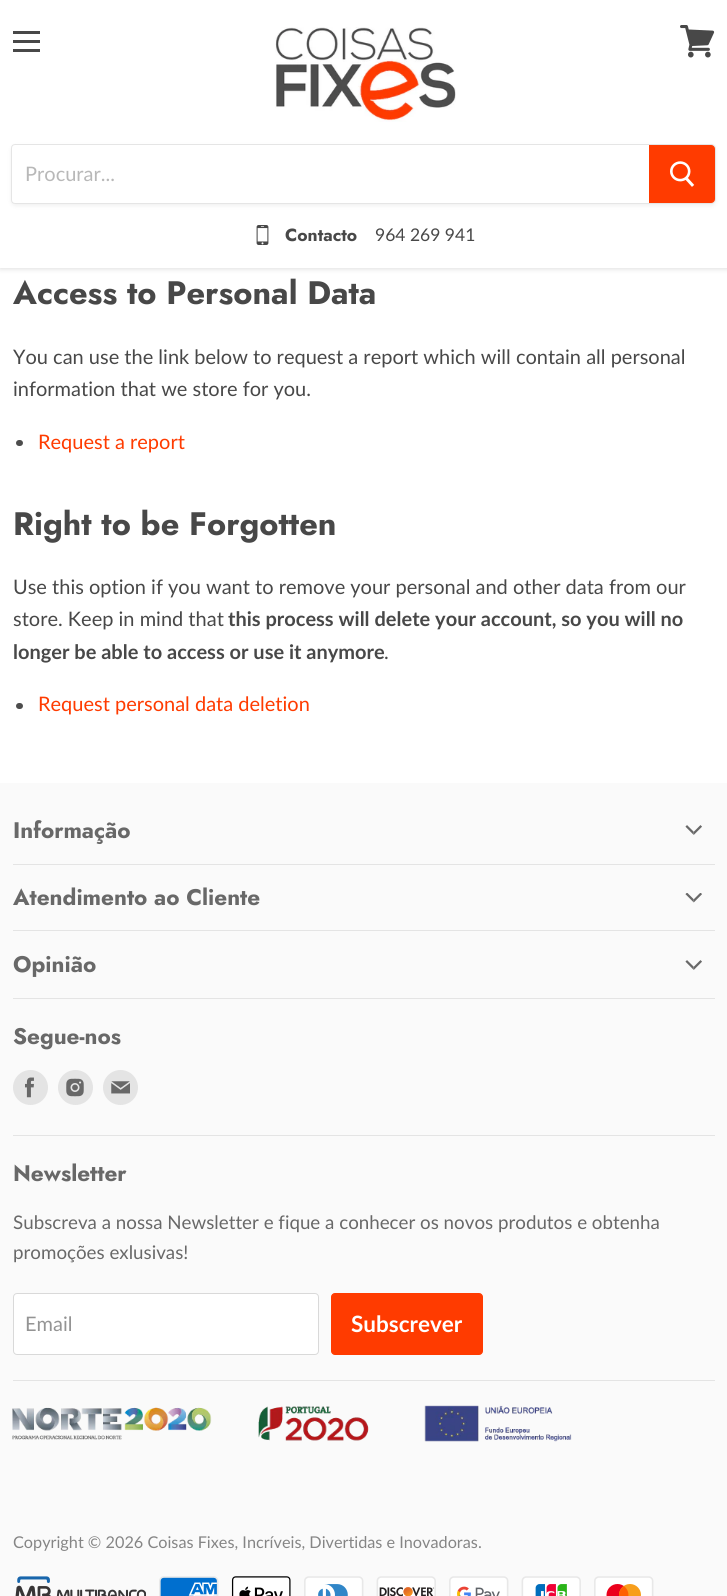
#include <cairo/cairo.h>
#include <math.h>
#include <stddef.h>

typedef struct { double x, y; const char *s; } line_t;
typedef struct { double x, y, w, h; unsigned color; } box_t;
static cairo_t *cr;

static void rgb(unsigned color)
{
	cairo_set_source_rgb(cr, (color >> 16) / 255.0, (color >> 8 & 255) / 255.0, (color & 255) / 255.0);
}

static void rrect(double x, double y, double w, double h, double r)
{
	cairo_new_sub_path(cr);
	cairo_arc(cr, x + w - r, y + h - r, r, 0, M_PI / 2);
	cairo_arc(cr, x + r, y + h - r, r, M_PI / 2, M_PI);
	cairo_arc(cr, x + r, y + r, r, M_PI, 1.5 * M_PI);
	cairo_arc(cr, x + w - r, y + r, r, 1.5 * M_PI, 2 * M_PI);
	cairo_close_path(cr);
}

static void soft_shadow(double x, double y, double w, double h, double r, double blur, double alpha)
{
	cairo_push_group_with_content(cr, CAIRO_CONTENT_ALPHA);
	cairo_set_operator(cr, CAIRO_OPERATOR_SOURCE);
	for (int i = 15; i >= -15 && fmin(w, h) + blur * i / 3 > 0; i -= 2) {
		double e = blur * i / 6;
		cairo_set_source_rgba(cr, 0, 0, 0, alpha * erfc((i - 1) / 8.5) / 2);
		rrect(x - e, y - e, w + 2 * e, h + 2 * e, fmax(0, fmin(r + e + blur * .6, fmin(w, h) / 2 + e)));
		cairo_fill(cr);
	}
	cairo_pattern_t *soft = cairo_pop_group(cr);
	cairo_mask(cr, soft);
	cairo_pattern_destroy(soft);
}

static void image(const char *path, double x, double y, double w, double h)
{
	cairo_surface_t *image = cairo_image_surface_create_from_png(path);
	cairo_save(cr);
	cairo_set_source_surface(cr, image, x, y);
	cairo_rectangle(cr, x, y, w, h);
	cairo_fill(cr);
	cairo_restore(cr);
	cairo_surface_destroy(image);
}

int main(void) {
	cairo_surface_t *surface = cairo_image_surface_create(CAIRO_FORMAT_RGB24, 727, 1596);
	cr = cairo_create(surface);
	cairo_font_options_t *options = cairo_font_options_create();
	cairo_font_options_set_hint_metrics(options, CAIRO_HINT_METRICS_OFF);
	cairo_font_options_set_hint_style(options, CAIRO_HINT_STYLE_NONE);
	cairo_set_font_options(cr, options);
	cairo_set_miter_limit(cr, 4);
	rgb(0xffffff);
	cairo_paint(cr);
	rgb(0x7f7f7f);
	soft_shadow(0, -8, 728, 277, 0, 2.5, 0.25);
	{
		static const box_t items[] = {
			{0, 0, 727, 268, 0xffffff},
			{13, 31, 27, 3, 0x484848},
			{13, 40, 27, 3, 0x484848},
			{13, 49, 27, 3, 0x484848},
		};
		for (size_t i = 0; i < sizeof items / sizeof *items; i++) {
			rgb(items[i].color);
			cairo_rectangle(cr, items[i].x, items[i].y, items[i].w, items[i].h);
			cairo_fill(cr);
		}
	}
	image("img/1.png", 680, 25, 35, 33);
	image("img/2.png", 275, 27, 181, 95);
	cairo_save(cr);
	cairo_set_fill_rule(cr, CAIRO_FILL_RULE_EVEN_ODD);
	cairo_new_path(cr);
	cairo_move_to(cr, 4, 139);
	cairo_line_to(cr, 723, 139);
	cairo_line_to(cr, 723, 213);
	cairo_line_to(cr, 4, 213);
	cairo_close_path(cr);
	cairo_move_to(cr, 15, 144);
	cairo_line_to(cr, 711, 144);
	cairo_curve_to(cr, 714, 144, 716, 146, 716, 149);
	cairo_line_to(cr, 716, 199);
	cairo_curve_to(cr, 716, 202, 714, 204, 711, 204);
	cairo_line_to(cr, 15, 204);
	cairo_curve_to(cr, 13, 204, 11, 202, 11, 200);
	cairo_line_to(cr, 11, 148);
	cairo_curve_to(cr, 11, 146, 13, 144, 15, 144);
	cairo_close_path(cr);
	cairo_clip(cr);
	rgb(0x7f7f7f);
	soft_shadow(11, 146, 705, 60, 5, 2, 0.11);
	cairo_restore(cr);
	cairo_new_path(cr);
	cairo_move_to(cr, 15, 144.5);
	cairo_line_to(cr, 711, 144.5);
	cairo_curve_to(cr, 713.5, 144.5, 715.5, 146.5, 715.5, 149);
	cairo_line_to(cr, 715.5, 199);
	cairo_curve_to(cr, 715.5, 201.5, 713.5, 203.5, 711, 203.5);
	cairo_line_to(cr, 15, 203.5);
	cairo_curve_to(cr, 13, 203.5, 11.5, 202, 11.5, 200);
	cairo_line_to(cr, 11.5, 148);
	cairo_curve_to(cr, 11.5, 146, 13, 144.5, 15, 144.5);
	cairo_close_path(cr);
	cairo_set_source_rgba(cr, 0.498, 0.498, 0.498, 0.2);
	cairo_set_line_width(cr, 1);
	cairo_stroke(cr);
	rgb(0xff3b00);
	cairo_new_path(cr);
	cairo_move_to(cr, 649.5, 145.5);
	cairo_line_to(cr, 711, 145.5);
	cairo_curve_to(cr, 713, 145.5, 714.5, 147, 714.5, 149);
	cairo_line_to(cr, 714.5, 199);
	cairo_curve_to(cr, 714.5, 201, 713, 202.5, 711, 202.5);
	cairo_line_to(cr, 649.5, 202.5);
	cairo_close_path(cr);
	cairo_fill_preserve(cr);
	cairo_stroke(cr);
	image("img/3.png", 670, 161, 25, 26);
	image("img/4.png", 256, 225, 13, 20);
	rgb(0x4d4d4d);
	rrect(16, 440, 7, 6, 3);
	cairo_fill(cr);
	rrect(16, 703, 7, 6, 3);
	cairo_fill(cr);
	rgb(0xfafafa);
	cairo_rectangle(cr, 0, 783, 727, 813);
	cairo_fill(cr);
	rgb(0xe4e4e4);
	cairo_rectangle(cr, 13, 864, 702, 1);
	cairo_fill(cr);
	image("img/5.png", 685, 825, 17, 10);
	cairo_rectangle(cr, 13, 930, 702, 1);
	cairo_fill(cr);
	image("img/6.png", 685, 893, 17, 10);
	cairo_rectangle(cr, 13, 998, 702, 1);
	cairo_fill(cr);
	image("img/5.png", 685, 960, 17, 10);
	cairo_rectangle(cr, 13, 1135, 702, 1);
	cairo_fill(cr);
	cairo_arc(cr, 30.5, 1087.5, 17.5, 0, 2 * M_PI);
	cairo_fill(cr);
	image("img/7.png", 25, 1077, 9, 21);
	cairo_arc(cr, 75.5, 1087.5, 17.5, 0, 2 * M_PI);
	cairo_fill(cr);
	image("img/8.png", 66, 1078, 18, 19);
	cairo_arc(cr, 120.5, 1087.5, 17.5, 0, 2 * M_PI);
	cairo_fill(cr);
	image("img/9.png", 111, 1081, 19, 13);
	cairo_rectangle(cr, 13, 1380, 702, 1);
	cairo_fill(cr);
	rgb(0xffffff);
	rrect(13.5, 1293.5, 305, 61, 3.5);
	cairo_fill_preserve(cr);
	rgb(0xd9d9d9);
	cairo_stroke(cr);
	rgb(0xff3b00);
	rrect(331.5, 1293.5, 151, 61, 3.5);
	cairo_fill_preserve(cr);
	cairo_stroke(cr);
	image("img/10.png", 12, 1405, 560, 37);
	image("img/11.png", 15, 1576, 131, 20);
	image("img/12.png", 159, 1576, 60, 20);
	image("img/13.png", 231, 1576, 60, 20);
	image("img/14.png", 304, 1576, 60, 20);
	image("img/15.png", 376, 1576, 60, 20);
	image("img/16.png", 449, 1576, 60, 20);
	image("img/17.png", 521, 1576, 60, 20);
	image("img/18.png", 594, 1576, 60, 20);
	cairo_select_font_face(cr, "Lato", CAIRO_FONT_SLANT_NORMAL, CAIRO_FONT_WEIGHT_NORMAL);
	cairo_set_font_size(cr, 20);
	rgb(0xb8b8b8);
	cairo_move_to(cr, 25, 181);
	cairo_show_text(cr, "Procurar...");
	cairo_select_font_face(cr, "Jost", CAIRO_FONT_SLANT_NORMAL, CAIRO_FONT_WEIGHT_BOLD);
	cairo_set_font_size(cr, 17.5);
	rgb(0x484848);
	cairo_move_to(cr, 285, 241);
	cairo_show_text(cr, "Contacto");
	cairo_select_font_face(cr, "Lato", CAIRO_FONT_SLANT_NORMAL, CAIRO_FONT_WEIGHT_NORMAL);
	cairo_move_to(cr, 375, 241);
	cairo_show_text(cr, "964 269 941");
	cairo_select_font_face(cr, "Jost", CAIRO_FONT_SLANT_NORMAL, CAIRO_FONT_WEIGHT_BOLD);
	cairo_set_font_size(cr, 32.5);
	cairo_move_to(cr, 13, 304);
	cairo_show_text(cr, "Access to Personal Data");
	cairo_select_font_face(cr, "Lato", CAIRO_FONT_SLANT_NORMAL, CAIRO_FONT_WEIGHT_NORMAL);
	cairo_set_font_size(cr, 20);
	cairo_move_to(cr, 13, 364);
	cairo_show_text(cr, "You can use the link below to request a report which will contain all personal");
	cairo_move_to(cr, 13, 396);
	cairo_show_text(cr, "information that we store for you.");
	rgb(0xff3b00);
	cairo_move_to(cr, 38, 449);
	cairo_show_text(cr, "Request a report");
	cairo_select_font_face(cr, "Jost", CAIRO_FONT_SLANT_NORMAL, CAIRO_FONT_WEIGHT_BOLD);
	cairo_set_font_size(cr, 32.5);
	rgb(0x484848);
	cairo_move_to(cr, 13, 535);
	cairo_show_text(cr, "Right to be Forgotten");
	cairo_select_font_face(cr, "Lato", CAIRO_FONT_SLANT_NORMAL, CAIRO_FONT_WEIGHT_NORMAL);
	cairo_set_font_size(cr, 20);
	cairo_move_to(cr, 13, 594);
	cairo_show_text(cr, "Use this option if you want to remove your personal and other data from our");
	cairo_move_to(cr, 13, 626);
	cairo_show_text(cr, "store. Keep in mind that");
	cairo_select_font_face(cr, "Lato", CAIRO_FONT_SLANT_NORMAL, CAIRO_FONT_WEIGHT_BOLD);
	cairo_move_to(cr, 228, 626);
	cairo_show_text(cr, "this process will delete your account, so you will no");
	cairo_move_to(cr, 13, 659);
	cairo_show_text(cr, "longer be able to access or use it anymore");
	cairo_select_font_face(cr, "Lato", CAIRO_FONT_SLANT_NORMAL, CAIRO_FONT_WEIGHT_NORMAL);
	cairo_move_to(cr, 384, 659);
	cairo_show_text(cr, ".");
	rgb(0xff3b00);
	cairo_move_to(cr, 38, 711);
	cairo_show_text(cr, "Request personal data deletion");
	cairo_select_font_face(cr, "Jost", CAIRO_FONT_SLANT_NORMAL, CAIRO_FONT_WEIGHT_BOLD);
	cairo_set_font_size(cr, 22.5);
	rgb(0x686868);
	{
		static const line_t items[] = {
			{13, 838, "Informação"},
			{13, 905, "Atendimento ao Cliente"},
			{13, 972, "Opinião"},
			{13, 1044, "Segue-nos"},
			{13, 1181, "Newsletter"},
		};
		for (size_t i = 0; i < sizeof items / sizeof *items; i++) {
			cairo_move_to(cr, items[i].x, items[i].y);
			cairo_show_text(cr, items[i].s);
		}
	}
	cairo_select_font_face(cr, "Lato", CAIRO_FONT_SLANT_NORMAL, CAIRO_FONT_WEIGHT_NORMAL);
	cairo_set_font_size(cr, 18.75);
	cairo_move_to(cr, 13, 1229);
	cairo_show_text(cr, "Subscreva a nossa Newsletter e fique a conhecer os novos produtos e obtenha");
	cairo_move_to(cr, 13, 1259);
	cairo_show_text(cr, "promoções exlusivas!");
	cairo_set_font_size(cr, 20);
	rgb(0x949494);
	cairo_move_to(cr, 25, 1331);
	cairo_show_text(cr, "Email");
	cairo_select_font_face(cr, "Lato", CAIRO_FONT_SLANT_NORMAL, CAIRO_FONT_WEIGHT_BOLD);
	cairo_set_font_size(cr, 22.5);
	rgb(0xffffff);
	cairo_move_to(cr, 351, 1332);
	cairo_show_text(cr, "Subscrever");
	cairo_select_font_face(cr, "Lato", CAIRO_FONT_SLANT_NORMAL, CAIRO_FONT_WEIGHT_NORMAL);
	cairo_set_font_size(cr, 16.25);
	rgb(0x858585);
	cairo_move_to(cr, 13, 1548);
	cairo_show_text(cr, "Copyright © 2026 Coisas Fixes, Incríveis, Divertidas e Inovadoras.");
	cairo_surface_write_to_png(surface, "page.png");
	cairo_font_options_destroy(options);
	cairo_destroy(cr);
	cairo_surface_destroy(surface);
	return 0;
}
